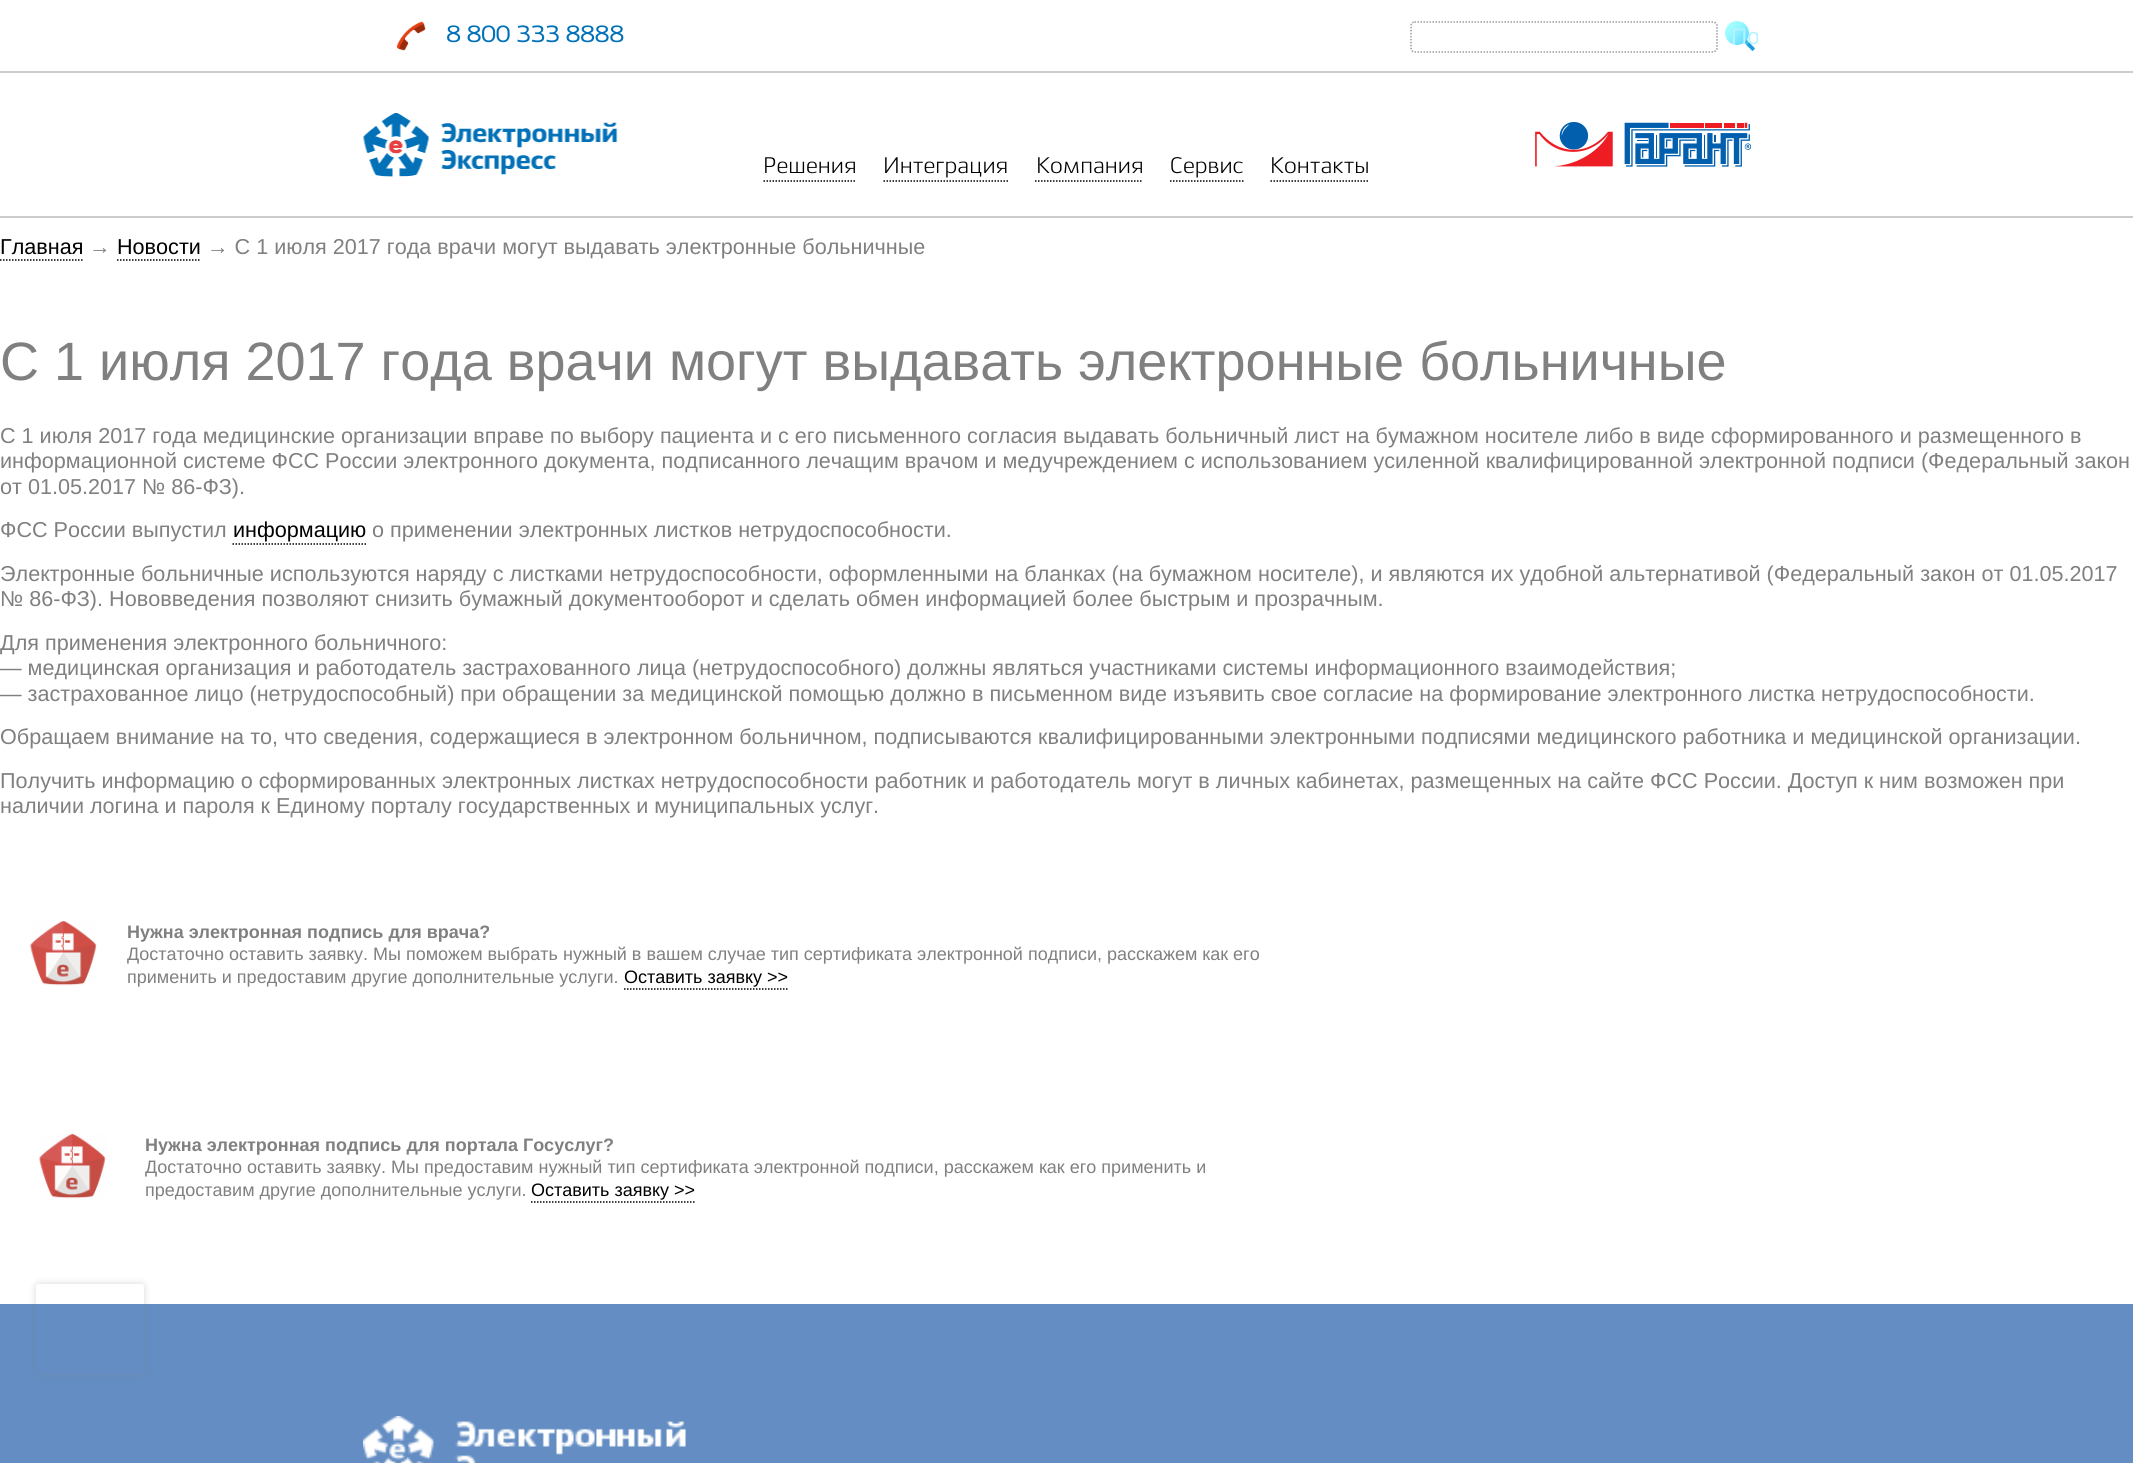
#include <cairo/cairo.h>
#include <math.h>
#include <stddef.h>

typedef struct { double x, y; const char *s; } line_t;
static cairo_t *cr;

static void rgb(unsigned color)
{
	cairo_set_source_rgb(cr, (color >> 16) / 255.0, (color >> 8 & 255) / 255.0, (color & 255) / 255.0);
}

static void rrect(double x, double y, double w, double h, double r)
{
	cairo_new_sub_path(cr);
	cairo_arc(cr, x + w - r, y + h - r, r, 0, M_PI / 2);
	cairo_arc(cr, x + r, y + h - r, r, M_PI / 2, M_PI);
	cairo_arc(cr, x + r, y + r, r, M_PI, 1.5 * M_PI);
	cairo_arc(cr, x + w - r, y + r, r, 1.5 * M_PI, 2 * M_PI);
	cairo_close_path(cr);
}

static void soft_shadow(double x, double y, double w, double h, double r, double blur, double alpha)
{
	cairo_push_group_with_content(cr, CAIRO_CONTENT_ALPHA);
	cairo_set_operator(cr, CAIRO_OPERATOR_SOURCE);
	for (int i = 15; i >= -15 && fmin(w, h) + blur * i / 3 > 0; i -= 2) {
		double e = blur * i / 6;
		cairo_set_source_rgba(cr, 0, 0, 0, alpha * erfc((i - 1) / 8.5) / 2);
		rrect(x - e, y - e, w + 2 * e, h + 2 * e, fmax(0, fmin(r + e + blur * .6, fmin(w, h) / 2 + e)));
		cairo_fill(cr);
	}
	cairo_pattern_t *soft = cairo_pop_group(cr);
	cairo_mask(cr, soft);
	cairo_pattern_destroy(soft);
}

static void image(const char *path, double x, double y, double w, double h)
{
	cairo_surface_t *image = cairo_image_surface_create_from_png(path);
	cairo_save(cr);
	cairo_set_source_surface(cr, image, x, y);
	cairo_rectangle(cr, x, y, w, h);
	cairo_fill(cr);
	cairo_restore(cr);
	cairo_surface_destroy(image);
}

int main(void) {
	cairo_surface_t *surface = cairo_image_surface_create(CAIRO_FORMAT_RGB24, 2133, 1463);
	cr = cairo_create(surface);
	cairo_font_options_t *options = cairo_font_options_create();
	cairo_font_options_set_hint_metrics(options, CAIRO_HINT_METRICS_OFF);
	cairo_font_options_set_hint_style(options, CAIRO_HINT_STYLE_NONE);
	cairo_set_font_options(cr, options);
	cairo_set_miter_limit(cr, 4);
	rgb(0xffffff);
	cairo_paint(cr);
	rgb(0xcccccc);
	cairo_rectangle(cr, 0, 216, 2133, 2);
	cairo_fill(cr);
	cairo_rectangle(cr, 0, 71, 2133, 2);
	cairo_fill(cr);
	image("img/1.png", 396, 21, 30, 30);
	cairo_new_path(cr);
	cairo_move_to(cr, 1414.5, 22);
	cairo_line_to(cr, 1713, 22);
	cairo_curve_to(cr, 1715, 22, 1717, 23.5, 1717, 25.5);
	cairo_line_to(cr, 1717, 48);
	cairo_curve_to(cr, 1717, 50, 1715, 52, 1713, 52);
	cairo_line_to(cr, 1414.5, 52);
	cairo_curve_to(cr, 1412.5, 52, 1411, 50, 1411, 48);
	cairo_line_to(cr, 1411, 25.5);
	cairo_curve_to(cr, 1411, 23.5, 1412.5, 22, 1414.5, 22);
	cairo_close_path(cr);
	rgb(0x999999);
	cairo_set_line_width(cr, 1.5);
	cairo_set_dash(cr, (double[]){1.5, 1.5}, 2, 0);
	cairo_stroke(cr);
	image("img/2.png", 1725, 21, 30, 30);
	image("img/3.png", 363, 113, 255, 64);
	cairo_new_path(cr);
	cairo_move_to(cr, 763.5, 181);
	cairo_line_to(cr, 856.5, 181);
	rgb(0x000000);
	cairo_stroke(cr);
	cairo_new_path(cr);
	cairo_move_to(cr, 883.5, 181);
	cairo_line_to(cr, 1008, 181);
	cairo_stroke(cr);
	cairo_new_path(cr);
	cairo_move_to(cr, 1035, 181);
	cairo_line_to(cr, 1143, 181);
	cairo_stroke(cr);
	cairo_new_path(cr);
	cairo_move_to(cr, 1170, 181);
	cairo_line_to(cr, 1243.5, 181);
	cairo_stroke(cr);
	cairo_new_path(cr);
	cairo_move_to(cr, 1270.5, 181);
	cairo_line_to(cr, 1369.5, 181);
	cairo_stroke(cr);
	image("img/4.png", 1535, 122, 216, 45);
	cairo_new_path(cr);
	cairo_move_to(cr, 0, 260);
	cairo_line_to(cr, 84, 260);
	cairo_stroke(cr);
	cairo_new_path(cr);
	cairo_move_to(cr, 117, 260);
	cairo_line_to(cr, 201, 260);
	cairo_stroke(cr);
	cairo_new_path(cr);
	cairo_move_to(cr, 232.5, 544);
	cairo_line_to(cr, 366, 544);
	cairo_stroke(cr);
	image("img/5.png", 30, 920, 67, 66);
	cairo_new_path(cr);
	cairo_move_to(cr, 624, 989);
	cairo_line_to(cr, 787.5, 989);
	cairo_stroke(cr);
	image("img/5.png", 39, 1133, 67, 66);
	cairo_new_path(cr);
	cairo_move_to(cr, 531, 1202);
	cairo_line_to(cr, 694.5, 1202);
	cairo_stroke(cr);
	rgb(0x638dc3);
	cairo_rectangle(cr, 0, 1304, 2133, 159);
	cairo_fill(cr);
	cairo_save(cr);
	cairo_set_fill_rule(cr, CAIRO_FILL_RULE_EVEN_ODD);
	cairo_new_path(cr);
	cairo_move_to(cr, 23, 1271);
	cairo_line_to(cr, 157, 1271);
	cairo_line_to(cr, 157, 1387);
	cairo_line_to(cr, 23, 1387);
	cairo_close_path(cr);
	cairo_move_to(cr, 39, 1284);
	cairo_line_to(cr, 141, 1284);
	cairo_curve_to(cr, 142.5, 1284, 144, 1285.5, 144, 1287);
	cairo_line_to(cr, 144, 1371);
	cairo_curve_to(cr, 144, 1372.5, 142.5, 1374, 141, 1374);
	cairo_line_to(cr, 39, 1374);
	cairo_curve_to(cr, 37.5, 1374, 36, 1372.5, 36, 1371);
	cairo_line_to(cr, 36, 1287);
	cairo_curve_to(cr, 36, 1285.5, 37.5, 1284, 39, 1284);
	cairo_close_path(cr);
	cairo_clip(cr);
	rgb(0x808080);
	soft_shadow(36, 1284, 108, 90, 3, 4, 0.3);
	cairo_restore(cr);
	image("img/6.png", 363, 1416, 323, 47);
	cairo_select_font_face(cr, "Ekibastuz", CAIRO_FONT_SLANT_NORMAL, CAIRO_FONT_WEIGHT_BOLD);
	cairo_set_font_size(cr, 22.5);
	rgb(0x0071b8);
	cairo_move_to(cr, 446, 42);
	cairo_show_text(cr, "8 800 333 8888");
	cairo_save(cr);
	rrect(1722, 18, 36, 36, 5);
	cairo_clip(cr);
	cairo_select_font_face(cr, "Liberation Sans", CAIRO_FONT_SLANT_NORMAL, CAIRO_FONT_WEIGHT_NORMAL);
	rgb(0xb3f2fe);
	cairo_move_to(cr, 1731, 44);
	cairo_show_text(cr, "По");
	cairo_restore(cr);
	cairo_select_font_face(cr, "Ekibastuz", CAIRO_FONT_SLANT_NORMAL, CAIRO_FONT_WEIGHT_NORMAL);
	rgb(0x000000);
	{
		static const line_t items[] = {
			{763, 173, "Решения"},
			{883, 173, "Интеграция"},
			{1036, 173, "Компания"},
			{1170, 173, "Сервис"},
			{1270, 173, "Контакты"},
		};
		for (size_t i = 0; i < sizeof items / sizeof *items; i++) {
			cairo_move_to(cr, items[i].x, items[i].y);
			cairo_show_text(cr, items[i].s);
		}
	}
	cairo_select_font_face(cr, "Liberation Sans", CAIRO_FONT_SLANT_NORMAL, CAIRO_FONT_WEIGHT_NORMAL);
	cairo_set_font_size(cr, 21.6);
	cairo_move_to(cr, 0, 254);
	cairo_show_text(cr, "Главная");
	rgb(0x808080);
	cairo_move_to(cr, 89, 254);
	cairo_show_text(cr, "→");
	rgb(0x000000);
	cairo_move_to(cr, 117, 254);
	cairo_show_text(cr, "Новости");
	rgb(0x808080);
	cairo_move_to(cr, 207, 254);
	cairo_show_text(cr, "→ С 1 июля 2017 года врачи могут выдавать электронные больничные");
	cairo_set_font_size(cr, 54);
	cairo_move_to(cr, 0, 380);
	cairo_show_text(cr, "С 1 июля 2017 года врачи могут выдавать электронные больничные");
	cairo_set_font_size(cr, 21.6);
	{
		static const line_t items[] = {
			{0, 443, "С 1 июля 2017 года медицинские организации вправе по выбору пациента и с его письменного согласия выдавать больничный лист на бумажном носителе либо в виде сформированного и размещенного в"},
			{0, 468, "информационной системе ФСС России электронного документа, подписанного лечащим врачом и медучреждением с использованием усиленной квалифицированной электронной подписи (Федеральный закон"},
			{0, 494, "от 01.05.2017 № 86-ФЗ)."},
			{0, 537, "ФСС России выпустил"},
		};
		for (size_t i = 0; i < sizeof items / sizeof *items; i++) {
			cairo_move_to(cr, items[i].x, items[i].y);
			cairo_show_text(cr, items[i].s);
		}
	}
	rgb(0x000000);
	cairo_move_to(cr, 233, 537);
	cairo_show_text(cr, "информацию");
	rgb(0x808080);
	{
		static const line_t items[] = {
			{372, 537, "о применении электронных листков нетрудоспособности."},
			{0, 581, "Электронные больничные используются наряду с листками нетрудоспособности, оформленными на бланках (на бумажном носителе), и являются их удобной альтернативой (Федеральный закон от 01.05.2017"},
			{0, 606, "№ 86-ФЗ). Нововведения позволяют снизить бумажный документооборот и сделать обмен информацией более быстрым и прозрачным."},
			{0, 650, "Для применения электронного больничного:"},
			{0, 675, "— медицинская организация и работодатель застрахованного лица (нетрудоспособного) должны являться участниками системы информационного взаимодействия;"},
			{0, 701, "— застрахованное лицо (нетрудоспособный) при обращении за медицинской помощью должно в письменном виде изъявить свое согласие на формирование электронного листка нетрудоспособности."},
			{0, 744, "Обращаем внимание на то, что сведения, содержащиеся в электронном больничном, подписываются квалифицированными электронными подписями медицинского работника и медицинской организации."},
			{0, 788, "Получить информацию о сформированных электронных листках нетрудоспособности работник и работодатель могут в личных кабинетах, размещенных на сайте ФСС России. Доступ к ним возможен при"},
			{0, 813, "наличии логина и пароля к Единому порталу государственных и муниципальных услуг."},
		};
		for (size_t i = 0; i < sizeof items / sizeof *items; i++) {
			cairo_move_to(cr, items[i].x, items[i].y);
			cairo_show_text(cr, items[i].s);
		}
	}
	cairo_select_font_face(cr, "Liberation Sans", CAIRO_FONT_SLANT_NORMAL, CAIRO_FONT_WEIGHT_BOLD);
	cairo_set_font_size(cr, 18);
	cairo_move_to(cr, 127, 938);
	cairo_show_text(cr, "Нужна электронная подпись для врача?");
	cairo_select_font_face(cr, "Liberation Sans", CAIRO_FONT_SLANT_NORMAL, CAIRO_FONT_WEIGHT_NORMAL);
	cairo_move_to(cr, 127, 960);
	cairo_show_text(cr, "Достаточно оставить заявку. Мы поможем выбрать нужный в вашем случае тип сертификата электронной подписи, расскажем как его");
	cairo_move_to(cr, 127, 983);
	cairo_show_text(cr, "применить и предоставим другие дополнительные услуги.");
	rgb(0x000000);
	cairo_move_to(cr, 624, 983);
	cairo_show_text(cr, "Оставить заявку >>");
	cairo_select_font_face(cr, "Liberation Sans", CAIRO_FONT_SLANT_NORMAL, CAIRO_FONT_WEIGHT_BOLD);
	rgb(0x808080);
	cairo_move_to(cr, 145, 1151);
	cairo_show_text(cr, "Нужна электронная подпись для портала Госуслуг?");
	cairo_select_font_face(cr, "Liberation Sans", CAIRO_FONT_SLANT_NORMAL, CAIRO_FONT_WEIGHT_NORMAL);
	cairo_move_to(cr, 145, 1173);
	cairo_show_text(cr, "Достаточно оставить заявку. Мы предоставим нужный тип сертификата электронной подписи, расскажем как его применить и");
	cairo_move_to(cr, 145, 1196);
	cairo_show_text(cr, "предоставим другие дополнительные услуги.");
	rgb(0x000000);
	cairo_move_to(cr, 531, 1196);
	cairo_show_text(cr, "Оставить заявку >>");
	cairo_surface_write_to_png(surface, "page.png");
	cairo_font_options_destroy(options);
	cairo_destroy(cr);
	cairo_surface_destroy(surface);
	return 0;
}
